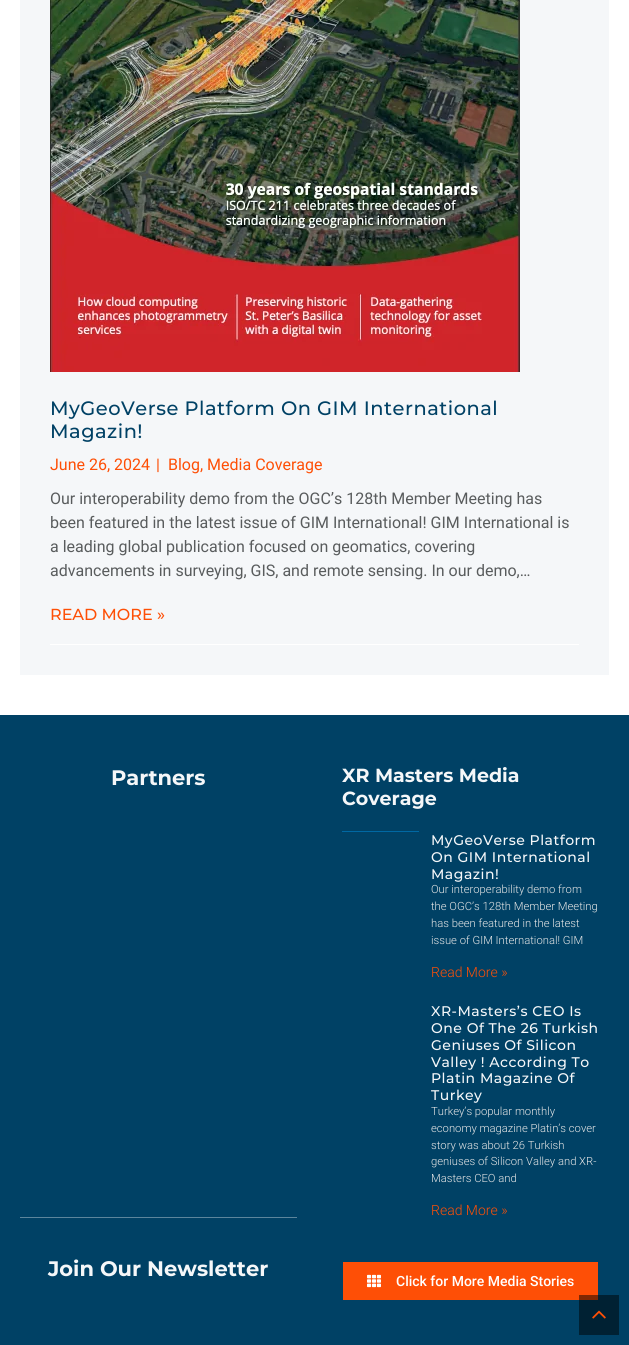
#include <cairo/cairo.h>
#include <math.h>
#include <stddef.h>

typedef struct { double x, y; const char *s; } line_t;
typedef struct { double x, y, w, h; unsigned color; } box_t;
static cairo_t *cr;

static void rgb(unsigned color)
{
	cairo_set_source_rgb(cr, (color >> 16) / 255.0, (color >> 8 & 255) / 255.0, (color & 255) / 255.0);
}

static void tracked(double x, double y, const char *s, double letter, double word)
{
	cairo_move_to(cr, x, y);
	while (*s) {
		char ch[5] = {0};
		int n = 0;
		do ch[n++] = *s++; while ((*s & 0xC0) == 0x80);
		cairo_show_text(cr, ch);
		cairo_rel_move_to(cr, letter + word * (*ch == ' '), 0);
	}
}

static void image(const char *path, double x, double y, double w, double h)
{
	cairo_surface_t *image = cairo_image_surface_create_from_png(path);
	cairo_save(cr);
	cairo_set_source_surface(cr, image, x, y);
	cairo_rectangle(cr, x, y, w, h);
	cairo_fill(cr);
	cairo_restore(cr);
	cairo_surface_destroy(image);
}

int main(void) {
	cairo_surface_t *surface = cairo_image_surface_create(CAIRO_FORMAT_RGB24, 629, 1345);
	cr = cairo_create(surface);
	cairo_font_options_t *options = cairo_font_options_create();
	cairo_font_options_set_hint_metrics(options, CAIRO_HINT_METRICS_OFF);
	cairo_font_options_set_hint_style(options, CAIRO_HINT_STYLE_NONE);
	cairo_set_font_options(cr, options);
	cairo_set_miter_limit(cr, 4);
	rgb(0xffffff);
	cairo_paint(cr);
	rgb(0xf5f7f9);
	cairo_rectangle(cr, 20, 0, 589, 675);
	cairo_fill(cr);
	rgb(0xffffff);
	cairo_rectangle(cr, 50, 644, 529, 1);
	cairo_fill(cr);
	image("img/1.png", 50, 0, 470, 372);
	{
		static const box_t items[] = {
			{0, 715, 629, 630, 0x004165},
			{579, 1295, 40, 40, 0x002133},
			{20, 1217, 277, 1, 0x5c859c},
			{342, 831, 77, 1, 0x0068a3},
			{343, 1262, 255, 38, 0xfe4f06},
			{579, 1295, 19, 5, 0x7f2803},
		};
		for (size_t i = 0; i < sizeof items / sizeof *items; i++) {
			rgb(items[i].color);
			cairo_rectangle(cr, items[i].x, items[i].y, items[i].w, items[i].h);
			cairo_fill(cr);
		}
	}
	image("img/2.png", 367, 1274, 14, 14);
	image("img/3.png", 592, 1310, 14, 9);
	cairo_select_font_face(cr, "Montserrat Medium", CAIRO_FONT_SLANT_NORMAL, CAIRO_FONT_WEIGHT_NORMAL);
	cairo_set_font_size(cr, 19.4);
	rgb(0x004165);
	tracked(50, 415, "MyGeoVerse Platform On GIM International", 0.5, 0);
	tracked(50, 438, "Magazin!", 0.5, 0);
	cairo_select_font_face(cr, "Roboto", CAIRO_FONT_SLANT_NORMAL, CAIRO_FONT_WEIGHT_NORMAL);
	cairo_set_font_size(cr, 16);
	rgb(0xfe4f06);
	{
		static const line_t items[] = {
			{50, 470, "June 26, 2024"},
			{156, 470, "|"},
			{168, 470, "Blog, Media Coverage"},
		};
		for (size_t i = 0; i < sizeof items / sizeof *items; i++) {
			cairo_move_to(cr, items[i].x, items[i].y);
			cairo_show_text(cr, items[i].s);
		}
	}
	rgb(0x595c5d);
	{
		static const line_t items[] = {
			{50, 504, "Our interoperability demo from the OGC’s 128th Member Meeting has"},
			{50, 528, "been featured in the latest issue of GIM International! GIM International is"},
			{50, 552, "a leading global publication focused on geomatics, covering"},
			{50, 576, "advancements in surveying, GIS, and remote sensing. In our demo,…"},
		};
		for (size_t i = 0; i < sizeof items / sizeof *items; i++) {
			cairo_move_to(cr, items[i].x, items[i].y);
			cairo_show_text(cr, items[i].s);
		}
	}
	cairo_select_font_face(cr, "Montserrat Medium", CAIRO_FONT_SLANT_NORMAL, CAIRO_FONT_WEIGHT_NORMAL);
	rgb(0xfe4f06);
	cairo_move_to(cr, 50, 620);
	cairo_show_text(cr, "READ MORE »");
	cairo_select_font_face(cr, "Montserrat", CAIRO_FONT_SLANT_NORMAL, CAIRO_FONT_WEIGHT_BOLD);
	cairo_set_font_size(cr, 21);
	rgb(0xf5f7f9);
	cairo_move_to(cr, 111, 785);
	cairo_show_text(cr, "Partners");
	cairo_move_to(cr, 48, 1276);
	cairo_show_text(cr, "Join Our Newsletter");
	cairo_set_font_size(cr, 19);
	cairo_move_to(cr, 342, 782);
	cairo_show_text(cr, "XR Masters Media");
	cairo_move_to(cr, 342, 805);
	cairo_show_text(cr, "Coverage");
	cairo_select_font_face(cr, "Montserrat Medium", CAIRO_FONT_SLANT_NORMAL, CAIRO_FONT_WEIGHT_NORMAL);
	cairo_set_font_size(cr, 14);
	{
		static const line_t items[] = {
			{431, 845, "MyGeoVerse Platform"},
			{431, 862, "On GIM International"},
			{431, 879, "Magazin!"},
		};
		for (size_t i = 0; i < sizeof items / sizeof *items; i++) {
			tracked(items[i].x, items[i].y, items[i].s, 0.5, 0);
		}
	}
	cairo_select_font_face(cr, "Roboto Light", CAIRO_FONT_SLANT_NORMAL, CAIRO_FONT_WEIGHT_NORMAL);
	cairo_set_font_size(cr, 11.25);
	rgb(0xe6e6e6);
	{
		static const line_t items[] = {
			{431, 893, "Our interoperability demo from"},
			{431, 910, "the OGC’s 128th Member Meeting"},
			{431, 927, "has been featured in the latest"},
			{431, 944, "issue of GIM International! GIM"},
		};
		for (size_t i = 0; i < sizeof items / sizeof *items; i++) {
			cairo_move_to(cr, items[i].x, items[i].y);
			cairo_show_text(cr, items[i].s);
		}
	}
	cairo_set_font_size(cr, 14);
	rgb(0xfe4f06);
	cairo_move_to(cr, 431, 977);
	cairo_show_text(cr, "Read More »");
	cairo_select_font_face(cr, "Montserrat Medium", CAIRO_FONT_SLANT_NORMAL, CAIRO_FONT_WEIGHT_NORMAL);
	rgb(0xf5f7f9);
	{
		static const line_t items[] = {
			{431, 1016, "XR-Masters’s CEO Is"},
			{431, 1033, "One Of The 26 Turkish"},
			{431, 1050, "Geniuses Of Silicon"},
			{431, 1067, "Valley ! According To"},
			{431, 1083, "Platin Magazine Of"},
			{431, 1100, "Turkey"},
		};
		for (size_t i = 0; i < sizeof items / sizeof *items; i++) {
			tracked(items[i].x, items[i].y, items[i].s, 0.5, 0);
		}
	}
	cairo_select_font_face(cr, "Roboto Light", CAIRO_FONT_SLANT_NORMAL, CAIRO_FONT_WEIGHT_NORMAL);
	cairo_set_font_size(cr, 11.25);
	rgb(0xe6e6e6);
	{
		static const line_t items[] = {
			{431, 1115, "Turkey’s popular monthly"},
			{431, 1132, "economy magazine Platin’s cover"},
			{431, 1149, "story was about 26 Turkish"},
			{431, 1165, "geniuses of Silicon Valley and XR-"},
			{431, 1182, "Masters CEO and"},
		};
		for (size_t i = 0; i < sizeof items / sizeof *items; i++) {
			cairo_move_to(cr, items[i].x, items[i].y);
			cairo_show_text(cr, items[i].s);
		}
	}
	cairo_set_font_size(cr, 14);
	rgb(0xfe4f06);
	cairo_move_to(cr, 431, 1215);
	cairo_show_text(cr, "Read More »");
	cairo_select_font_face(cr, "Roboto Medium", CAIRO_FONT_SLANT_NORMAL, CAIRO_FONT_WEIGHT_NORMAL);
	rgb(0xffffff);
	cairo_move_to(cr, 396, 1286);
	cairo_show_text(cr, "Click for More Media Stories");
	cairo_surface_write_to_png(surface, "page.png");
	cairo_font_options_destroy(options);
	cairo_destroy(cr);
	cairo_surface_destroy(surface);
	return 0;
}
